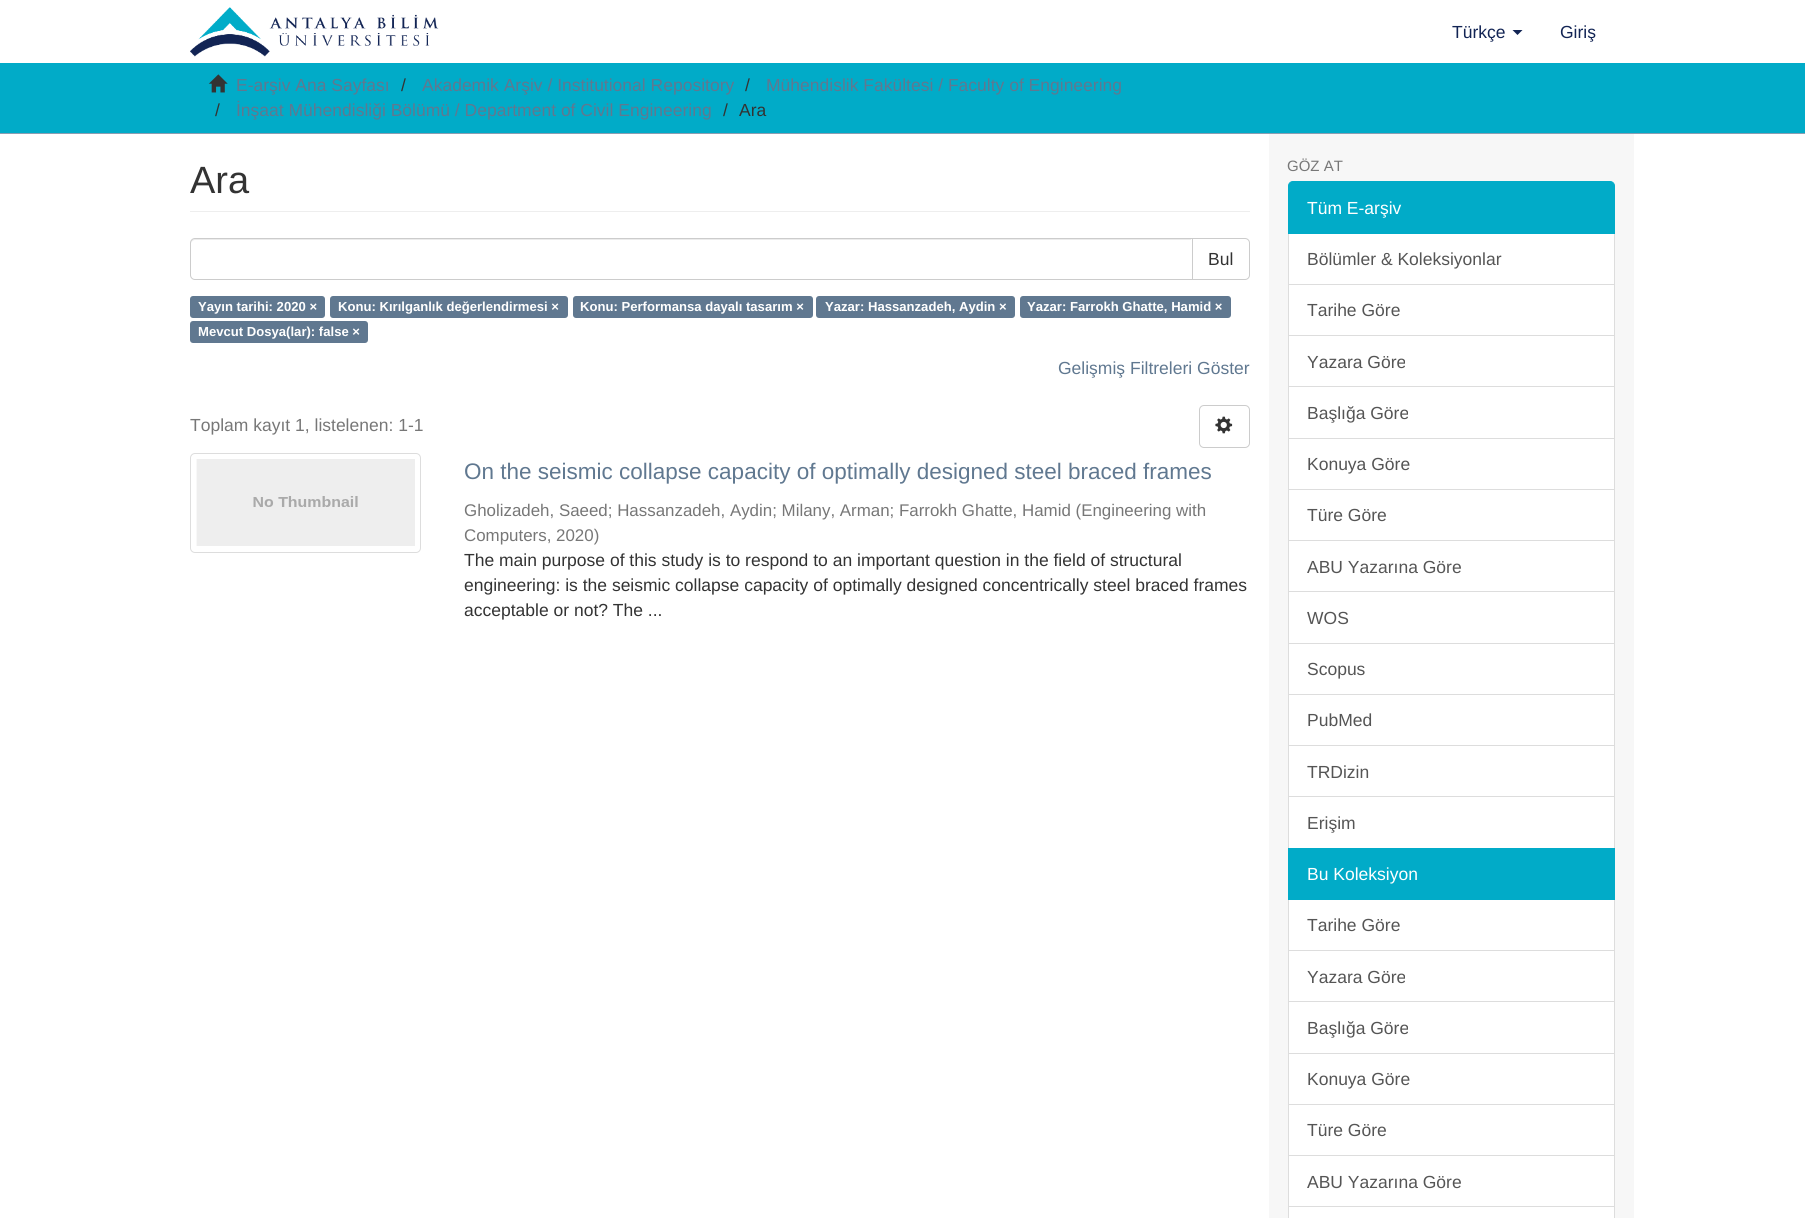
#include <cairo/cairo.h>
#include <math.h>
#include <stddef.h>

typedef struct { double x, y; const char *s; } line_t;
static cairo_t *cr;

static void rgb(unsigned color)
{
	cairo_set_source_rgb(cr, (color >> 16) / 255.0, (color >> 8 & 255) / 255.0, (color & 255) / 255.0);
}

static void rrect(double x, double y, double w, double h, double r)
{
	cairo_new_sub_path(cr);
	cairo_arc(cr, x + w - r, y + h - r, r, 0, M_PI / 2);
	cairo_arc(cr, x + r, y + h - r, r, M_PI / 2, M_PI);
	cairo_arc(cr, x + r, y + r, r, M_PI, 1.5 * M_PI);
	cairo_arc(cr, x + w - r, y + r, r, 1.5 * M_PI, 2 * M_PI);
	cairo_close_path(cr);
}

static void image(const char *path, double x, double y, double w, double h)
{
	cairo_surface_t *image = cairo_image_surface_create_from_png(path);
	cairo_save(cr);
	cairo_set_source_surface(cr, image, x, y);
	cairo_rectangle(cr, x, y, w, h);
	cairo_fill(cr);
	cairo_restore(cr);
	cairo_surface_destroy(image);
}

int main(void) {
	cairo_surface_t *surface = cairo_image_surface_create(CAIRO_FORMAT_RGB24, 1805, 1218);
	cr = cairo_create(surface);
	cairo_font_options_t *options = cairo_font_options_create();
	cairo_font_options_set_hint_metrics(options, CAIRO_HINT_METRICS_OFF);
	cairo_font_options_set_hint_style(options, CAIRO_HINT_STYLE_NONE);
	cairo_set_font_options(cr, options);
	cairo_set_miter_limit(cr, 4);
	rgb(0xffffff);
	cairo_paint(cr);
	image("img/1.png", 190, 7, 249, 50);
	rgb(0x122454);
	cairo_new_path(cr);
	cairo_move_to(cr, 1512.5, 30);
	cairo_line_to(cr, 1522.5, 30);
	cairo_line_to(cr, 1517.5, 35);
	cairo_close_path(cr);
	cairo_fill(cr);
	rgb(0x01abc8);
	cairo_rectangle(cr, 0, 63, 1805, 70);
	cairo_fill(cr);
	rgb(0x8b9eb2);
	cairo_rectangle(cr, 0, 133, 1805, 1);
	cairo_fill(cr);
	image("img/2.png", 208, 74, 20, 19);
	rgb(0xf7f7f7);
	cairo_rectangle(cr, 1269, 134, 365, 1084);
	cairo_fill(cr);
	rgb(0xeeeeee);
	cairo_rectangle(cr, 190, 211, 1060, 1);
	cairo_fill(cr);
	cairo_new_path(cr);
	cairo_move_to(cr, 1191.5, 238.5);
	cairo_line_to(cr, 1245, 238.5);
	cairo_curve_to(cr, 1247.5, 238.5, 1249.5, 240.5, 1249.5, 243);
	cairo_line_to(cr, 1249.5, 275);
	cairo_curve_to(cr, 1249.5, 277.5, 1247.5, 279.5, 1245, 279.5);
	cairo_line_to(cr, 1191.5, 279.5);
	cairo_close_path(cr);
	rgb(0xcccccc);
	cairo_set_line_width(cr, 1);
	cairo_stroke(cr);
	rgb(0xffffff);
	cairo_new_path(cr);
	cairo_move_to(cr, 195, 238);
	cairo_line_to(cr, 1193, 238);
	cairo_line_to(cr, 1193, 280);
	cairo_line_to(cr, 195, 280);
	cairo_curve_to(cr, 192, 280, 190, 278, 190, 275);
	cairo_line_to(cr, 190, 243);
	cairo_curve_to(cr, 190, 240, 192, 238, 195, 238);
	cairo_close_path(cr);
	cairo_fill(cr);
	rgb(0xececec);
	cairo_new_path(cr);
	cairo_move_to(cr, 195, 240);
	cairo_line_to(cr, 1191, 240);
	cairo_line_to(cr, 1191, 239);
	cairo_line_to(cr, 195, 239);
	cairo_curve_to(cr, 192, 239, 191, 241, 191, 244);
	cairo_curve_to(cr, 191, 242, 193, 240, 195, 240);
	cairo_close_path(cr);
	cairo_fill(cr);
	cairo_new_path(cr);
	cairo_move_to(cr, 195, 238.5);
	cairo_line_to(cr, 1192.5, 238.5);
	cairo_line_to(cr, 1192.5, 279.5);
	cairo_line_to(cr, 195, 279.5);
	cairo_curve_to(cr, 192.5, 279.5, 190.5, 277.5, 190.5, 275);
	cairo_line_to(cr, 190.5, 243);
	cairo_curve_to(cr, 190.5, 240.5, 192.5, 238.5, 195, 238.5);
	cairo_close_path(cr);
	rgb(0xcccccc);
	cairo_stroke(cr);
	rgb(0x607890);
	rrect(190, 296, 135, 22, 3);
	cairo_fill(cr);
	rrect(330, 296, 238, 22, 3);
	cairo_fill(cr);
	rrect(573, 296, 240, 22, 3);
	cairo_fill(cr);
	rrect(816, 296, 199, 22, 3);
	cairo_fill(cr);
	rrect(1020, 296, 211, 22, 3);
	cairo_fill(cr);
	rrect(190, 321, 178, 22, 3);
	cairo_fill(cr);
	rrect(1199.5, 405.5, 50, 42, 4.5);
	rgb(0xcccccc);
	cairo_stroke(cr);
	image("img/3.png", 1215, 416, 18, 18);
	rrect(190.5, 453.5, 230, 99, 4.5);
	rgb(0xdddddd);
	cairo_stroke(cr);
	image("img/4.png", 196, 459, 219, 87);
	rgb(0xffffff);
	cairo_rectangle(cr, 1288.5, 233.5, 326, 51);
	cairo_fill_preserve(cr);
	rgb(0xdddddd);
	cairo_stroke(cr);
	rgb(0x01abc8);
	cairo_new_path(cr);
	cairo_move_to(cr, 1293, 181.5);
	cairo_line_to(cr, 1610, 181.5);
	cairo_curve_to(cr, 1612.5, 181.5, 1614.5, 183.5, 1614.5, 186);
	cairo_line_to(cr, 1614.5, 233.5);
	cairo_line_to(cr, 1288.5, 233.5);
	cairo_line_to(cr, 1288.5, 186);
	cairo_curve_to(cr, 1288.5, 183.5, 1290.5, 181.5, 1293, 181.5);
	cairo_close_path(cr);
	cairo_fill_preserve(cr);
	cairo_stroke(cr);
	rgb(0xffffff);
	cairo_rectangle(cr, 1288.5, 284.5, 326, 51);
	cairo_fill_preserve(cr);
	rgb(0xdddddd);
	cairo_stroke(cr);
	rgb(0xffffff);
	cairo_rectangle(cr, 1289, 336, 325, 50);
	cairo_fill(cr);
	cairo_rectangle(cr, 1288.5, 335.5, 326, 52);
	rgb(0xdddddd);
	cairo_stroke(cr);
	rgb(0xffffff);
	cairo_rectangle(cr, 1288.5, 386.5, 326, 52);
	cairo_fill_preserve(cr);
	rgb(0xdddddd);
	cairo_stroke(cr);
	rgb(0xffffff);
	cairo_rectangle(cr, 1288.5, 438.5, 326, 51);
	cairo_fill_preserve(cr);
	rgb(0xdddddd);
	cairo_stroke(cr);
	rgb(0xffffff);
	cairo_rectangle(cr, 1288.5, 489.5, 326, 51);
	cairo_fill_preserve(cr);
	rgb(0xdddddd);
	cairo_stroke(cr);
	rgb(0xffffff);
	cairo_rectangle(cr, 1289, 541, 325, 50);
	cairo_fill(cr);
	cairo_rectangle(cr, 1288.5, 540.5, 326, 52);
	rgb(0xdddddd);
	cairo_stroke(cr);
	rgb(0xffffff);
	cairo_rectangle(cr, 1288.5, 591.5, 326, 52);
	cairo_fill_preserve(cr);
	rgb(0xdddddd);
	cairo_stroke(cr);
	rgb(0xffffff);
	cairo_rectangle(cr, 1288.5, 643.5, 326, 51);
	cairo_fill_preserve(cr);
	rgb(0xdddddd);
	cairo_stroke(cr);
	rgb(0xffffff);
	cairo_rectangle(cr, 1288.5, 694.5, 326, 51);
	cairo_fill_preserve(cr);
	rgb(0xdddddd);
	cairo_stroke(cr);
	rgb(0xffffff);
	cairo_rectangle(cr, 1289, 746, 325, 50);
	cairo_fill(cr);
	cairo_rectangle(cr, 1288.5, 745.5, 326, 52);
	rgb(0xdddddd);
	cairo_stroke(cr);
	rgb(0xffffff);
	cairo_rectangle(cr, 1288.5, 796.5, 326, 52);
	cairo_fill_preserve(cr);
	rgb(0xdddddd);
	cairo_stroke(cr);
	rgb(0xffffff);
	cairo_rectangle(cr, 1288.5, 899.5, 326, 51);
	cairo_fill_preserve(cr);
	rgb(0xdddddd);
	cairo_stroke(cr);
	rgb(0x01abc8);
	cairo_rectangle(cr, 1288, 848, 327, 52);
	cairo_fill(cr);
	rgb(0xffffff);
	cairo_rectangle(cr, 1289, 951, 325, 50);
	cairo_fill(cr);
	cairo_rectangle(cr, 1288.5, 950.5, 326, 52);
	rgb(0xdddddd);
	cairo_stroke(cr);
	rgb(0xffffff);
	cairo_rectangle(cr, 1288.5, 1001.5, 326, 52);
	cairo_fill_preserve(cr);
	rgb(0xdddddd);
	cairo_stroke(cr);
	rgb(0xffffff);
	cairo_rectangle(cr, 1288.5, 1053.5, 326, 51);
	cairo_fill_preserve(cr);
	rgb(0xdddddd);
	cairo_stroke(cr);
	rgb(0xffffff);
	cairo_rectangle(cr, 1288.5, 1104.5, 326, 51);
	cairo_fill_preserve(cr);
	rgb(0xdddddd);
	cairo_stroke(cr);
	rgb(0xffffff);
	cairo_rectangle(cr, 1289, 1156, 325, 50);
	cairo_fill(cr);
	cairo_rectangle(cr, 1288.5, 1155.5, 326, 52);
	rgb(0xdddddd);
	cairo_stroke(cr);
	rgb(0xffffff);
	cairo_rectangle(cr, 1288.5, 1206.5, 326, 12);
	cairo_fill_preserve(cr);
	rgb(0xdddddd);
	cairo_stroke(cr);
	cairo_select_font_face(cr, "Liberation Sans", CAIRO_FONT_SLANT_NORMAL, CAIRO_FONT_WEIGHT_NORMAL);
	cairo_set_font_size(cr, 17.5);
	rgb(0x122454);
	cairo_move_to(cr, 1452, 38);
	cairo_show_text(cr, "Türkçe");
	cairo_move_to(cr, 1560, 38);
	cairo_show_text(cr, "Giriş");
	rgb(0x607890);
	cairo_move_to(cr, 236, 91);
	cairo_show_text(cr, "E-arşiv Ana Sayfası");
	rgb(0x333333);
	cairo_move_to(cr, 401, 91);
	cairo_show_text(cr, "/");
	rgb(0x607890);
	cairo_move_to(cr, 422, 91);
	cairo_show_text(cr, "Akademik Arşiv / Institutional Repository");
	rgb(0x333333);
	cairo_move_to(cr, 745, 91);
	cairo_show_text(cr, "/");
	rgb(0x607890);
	cairo_move_to(cr, 766, 91);
	cairo_show_text(cr, "Mühendislik Fakültesi / Faculty of Engineering");
	rgb(0x333333);
	cairo_move_to(cr, 215, 116);
	cairo_show_text(cr, "/");
	rgb(0x607890);
	cairo_move_to(cr, 236, 116);
	cairo_show_text(cr, "İnşaat Mühendisliği Bölümü / Department of Civil Engineering");
	rgb(0x333333);
	cairo_move_to(cr, 723, 116);
	cairo_show_text(cr, "/");
	cairo_move_to(cr, 739, 116);
	cairo_show_text(cr, "Ara");
	cairo_set_font_size(cr, 38);
	cairo_move_to(cr, 190, 193);
	cairo_show_text(cr, "Ara");
	cairo_set_font_size(cr, 17.5);
	cairo_move_to(cr, 1208, 265);
	cairo_show_text(cr, "Bul");
	cairo_select_font_face(cr, "Liberation Sans", CAIRO_FONT_SLANT_NORMAL, CAIRO_FONT_WEIGHT_BOLD);
	cairo_set_font_size(cr, 13.1);
	rgb(0xffffff);
	{
		static const line_t items[] = {
			{198, 311, "Yayın tarihi: 2020 ×"},
			{338, 311, "Konu: Kırılganlık değerlendirmesi ×"},
			{580, 311, "Konu: Performansa dayalı tasarım ×"},
			{825, 311, "Yazar: Hassanzadeh, Aydin ×"},
			{1027, 311, "Yazar: Farrokh Ghatte, Hamid ×"},
			{198, 336, "Mevcut Dosya(lar): false ×"},
		};
		for (size_t i = 0; i < sizeof items / sizeof *items; i++) {
			cairo_move_to(cr, items[i].x, items[i].y);
			cairo_show_text(cr, items[i].s);
		}
	}
	cairo_select_font_face(cr, "Liberation Sans", CAIRO_FONT_SLANT_NORMAL, CAIRO_FONT_WEIGHT_NORMAL);
	cairo_set_font_size(cr, 17.5);
	rgb(0x607890);
	cairo_move_to(cr, 1058, 374);
	cairo_show_text(cr, "Gelişmiş Filtreleri Göster");
	rgb(0x777777);
	cairo_move_to(cr, 190, 431);
	cairo_show_text(cr, "Toplam kayıt 1, listelenen: 1-1");
	cairo_set_font_size(cr, 22.5);
	rgb(0x607890);
	cairo_move_to(cr, 464, 479);
	cairo_show_text(cr, "On the seismic collapse capacity of optimally designed steel braced frames");
	cairo_set_font_size(cr, 16.9);
	rgb(0x777777);
	cairo_move_to(cr, 464, 516);
	cairo_show_text(cr, "Gholizadeh, Saeed; Hassanzadeh, Aydin; Milany, Arman; Farrokh Ghatte, Hamid (Engineering with");
	cairo_move_to(cr, 464, 541);
	cairo_show_text(cr, "Computers, 2020)");
	cairo_set_font_size(cr, 17.5);
	rgb(0x333333);
	{
		static const line_t items[] = {
			{464, 566, "The main purpose of this study is to respond to an important question in the field of structural"},
			{464, 591, "engineering: is the seismic collapse capacity of optimally designed concentrically steel braced frames"},
			{464, 616, "acceptable or not? The ..."},
		};
		for (size_t i = 0; i < sizeof items / sizeof *items; i++) {
			cairo_move_to(cr, items[i].x, items[i].y);
			cairo_show_text(cr, items[i].s);
		}
	}
	cairo_set_font_size(cr, 15);
	rgb(0x777777);
	cairo_move_to(cr, 1287, 171);
	cairo_show_text(cr, "GÖZ AT");
	cairo_set_font_size(cr, 17.5);
	rgb(0xffffff);
	cairo_move_to(cr, 1307, 214);
	cairo_show_text(cr, "Tüm E-arşiv");
	rgb(0x555555);
	{
		static const line_t items[] = {
			{1307, 265, "Bölümler & Koleksiyonlar"},
			{1307, 316, "Tarihe Göre"},
			{1307, 368, "Yazara Göre"},
			{1307, 419, "Başlığa Göre"},
			{1307, 470, "Konuya Göre"},
			{1307, 521, "Türe Göre"},
			{1307, 573, "ABU Yazarına Göre"},
			{1307, 624, "WOS"},
			{1307, 675, "Scopus"},
			{1307, 726, "PubMed"},
			{1307, 778, "TRDizin"},
			{1307, 829, "Erişim"},
		};
		for (size_t i = 0; i < sizeof items / sizeof *items; i++) {
			cairo_move_to(cr, items[i].x, items[i].y);
			cairo_show_text(cr, items[i].s);
		}
	}
	rgb(0xffffff);
	cairo_move_to(cr, 1307, 880);
	cairo_show_text(cr, "Bu Koleksiyon");
	rgb(0x555555);
	{
		static const line_t items[] = {
			{1307, 931, "Tarihe Göre"},
			{1307, 983, "Yazara Göre"},
			{1307, 1034, "Başlığa Göre"},
			{1307, 1085, "Konuya Göre"},
			{1307, 1136, "Türe Göre"},
			{1307, 1188, "ABU Yazarına Göre"},
		};
		for (size_t i = 0; i < sizeof items / sizeof *items; i++) {
			cairo_move_to(cr, items[i].x, items[i].y);
			cairo_show_text(cr, items[i].s);
		}
	}
	cairo_surface_write_to_png(surface, "page.png");
	cairo_font_options_destroy(options);
	cairo_destroy(cr);
	cairo_surface_destroy(surface);
	return 0;
}
